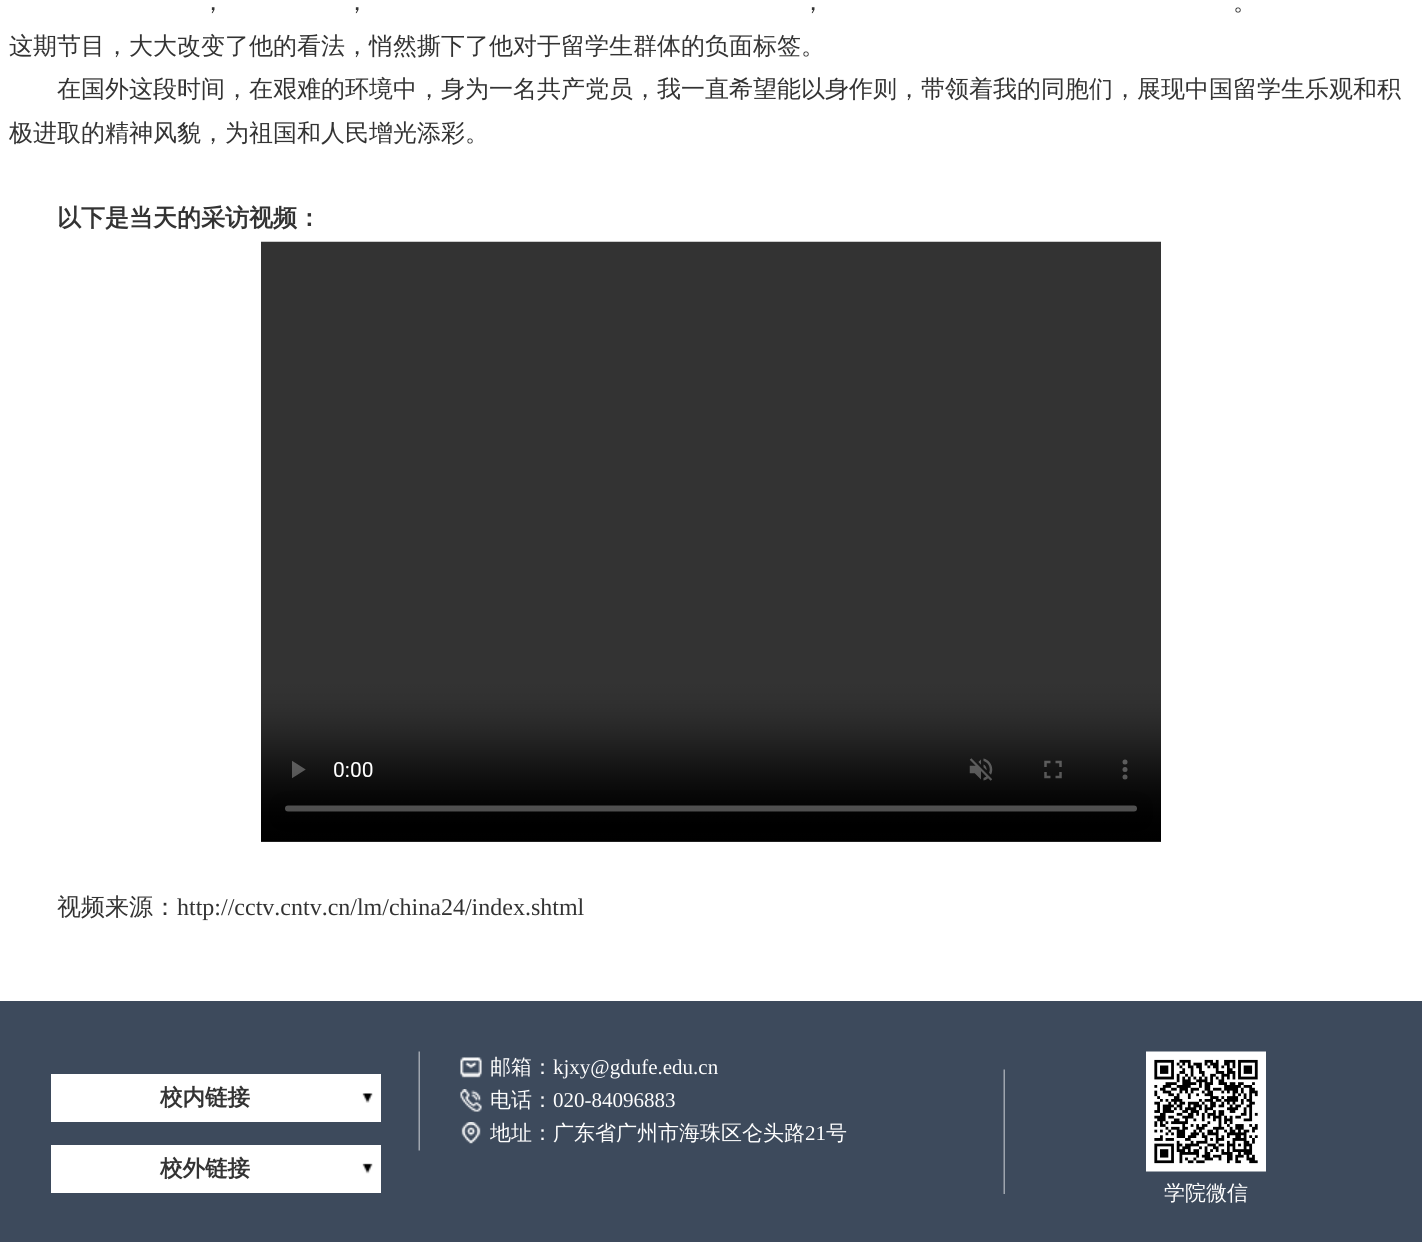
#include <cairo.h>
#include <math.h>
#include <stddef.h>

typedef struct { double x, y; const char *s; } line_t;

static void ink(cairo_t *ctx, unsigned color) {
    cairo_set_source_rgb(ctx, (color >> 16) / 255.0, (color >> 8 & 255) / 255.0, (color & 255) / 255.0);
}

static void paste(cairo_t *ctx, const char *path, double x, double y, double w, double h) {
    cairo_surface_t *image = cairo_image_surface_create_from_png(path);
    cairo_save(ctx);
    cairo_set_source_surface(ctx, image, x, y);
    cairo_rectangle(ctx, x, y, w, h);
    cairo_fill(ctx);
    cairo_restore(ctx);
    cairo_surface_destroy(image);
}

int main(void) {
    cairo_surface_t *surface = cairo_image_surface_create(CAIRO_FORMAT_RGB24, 1422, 1242);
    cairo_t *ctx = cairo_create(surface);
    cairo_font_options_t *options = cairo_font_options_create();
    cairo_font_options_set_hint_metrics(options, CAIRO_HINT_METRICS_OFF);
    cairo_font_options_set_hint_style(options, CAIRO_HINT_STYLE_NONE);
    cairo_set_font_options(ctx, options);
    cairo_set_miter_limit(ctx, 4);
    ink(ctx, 0xFFFFFF);
    cairo_paint(ctx);
    cairo_select_font_face(ctx, "WenQuanYi Zen Hei Medium", CAIRO_FONT_SLANT_NORMAL, CAIRO_FONT_WEIGHT_NORMAL);
    cairo_set_font_size(ctx, 24);
    ink(ctx, 0x333333);
    {
        static const line_t items[] = {
            {201, 10, "，"},
            {345, 10, "，"},
            {801, 10, "，"},
            {1233, 10, "。"},
            {9, 54, "这期节目，大大改变了他的看法，悄然撕下了他对于留学生群体的负面标签。"},
            {57, 97, "在国外这段时间，在艰难的环境中，身为一名共产党员，我一直希望能以身作则，带领着我的同胞们，展现中国留学生乐观和积"},
            {9, 141, "极进取的精神风貌，为祖国和人民增光添彩。"},
        };
        for (size_t i = 0; i < sizeof items / sizeof *items; i++) {
            cairo_move_to(ctx, items[i].x, items[i].y);
            cairo_show_text(ctx, items[i].s);
        }
    }
    cairo_select_font_face(ctx, "WenQuanYi Zen Hei", CAIRO_FONT_SLANT_NORMAL, CAIRO_FONT_WEIGHT_BOLD);
    cairo_move_to(ctx, 57, 226);
    cairo_show_text(ctx, "以下是当天的采访视频：");
    paste(ctx, "media/1.png", 261, 241, 900, 600);
    ink(ctx, 0x1F1F1F);
    cairo_rectangle(ctx, 261, 841, 900, 1);
    cairo_fill(ctx);
    cairo_select_font_face(ctx, "WenQuanYi Zen Hei Medium", CAIRO_FONT_SLANT_NORMAL, CAIRO_FONT_WEIGHT_NORMAL);
    ink(ctx, 0x333333);
    cairo_move_to(ctx, 57, 915);
    cairo_show_text(ctx, "视频来源：");
    cairo_select_font_face(ctx, "Liberation Serif", CAIRO_FONT_SLANT_NORMAL, CAIRO_FONT_WEIGHT_NORMAL);
    cairo_move_to(ctx, 177, 915);
    cairo_show_text(ctx, "http://cctv.cntv.cn/lm/china24/index.shtml");
    ink(ctx, 0x3D4A5C);
    cairo_rectangle(ctx, 0, 1001, 1422, 241);
    cairo_fill(ctx);
    ink(ctx, 0xFFFFFF);
    cairo_rectangle(ctx, 51, 1074, 330, 48);
    cairo_fill(ctx);
    paste(ctx, "media/2.png", 362, 1093, 11, 10);
    cairo_select_font_face(ctx, "WenQuanYi Zen Hei", CAIRO_FONT_SLANT_NORMAL, CAIRO_FONT_WEIGHT_BOLD);
    cairo_set_font_size(ctx, 22.5);
    ink(ctx, 0x333333);
    cairo_move_to(ctx, 160, 1105);
    cairo_show_text(ctx, "校内链接");
    ink(ctx, 0xFFFFFF);
    cairo_rectangle(ctx, 51, 1145, 330, 48);
    cairo_fill(ctx);
    paste(ctx, "media/3.png", 362, 1163, 11, 11);
    ink(ctx, 0x333333);
    cairo_move_to(ctx, 160, 1176);
    cairo_show_text(ctx, "校外链接");
    paste(ctx, "media/4.png", 418, 1051, 2, 100);
    paste(ctx, "media/5.png", 460, 1057, 22, 21);
    cairo_select_font_face(ctx, "WenQuanYi Zen Hei Medium", CAIRO_FONT_SLANT_NORMAL, CAIRO_FONT_WEIGHT_NORMAL);
    cairo_set_font_size(ctx, 21);
    ink(ctx, 0xFEFEFE);
    cairo_move_to(ctx, 490, 1074);
    cairo_show_text(ctx, "邮箱：");
    cairo_select_font_face(ctx, "Liberation Serif", CAIRO_FONT_SLANT_NORMAL, CAIRO_FONT_WEIGHT_NORMAL);
    cairo_move_to(ctx, 553, 1074);
    cairo_show_text(ctx, "kjxy@gdufe.edu.cn");
    paste(ctx, "media/6.png", 460, 1089, 22, 23);
    cairo_select_font_face(ctx, "WenQuanYi Zen Hei Medium", CAIRO_FONT_SLANT_NORMAL, CAIRO_FONT_WEIGHT_NORMAL);
    cairo_move_to(ctx, 490, 1107);
    cairo_show_text(ctx, "电话：");
    cairo_select_font_face(ctx, "Liberation Serif", CAIRO_FONT_SLANT_NORMAL, CAIRO_FONT_WEIGHT_NORMAL);
    cairo_move_to(ctx, 553, 1107);
    cairo_show_text(ctx, "020-84096883");
    paste(ctx, "media/7.png", 461, 1122, 20, 22);
    cairo_select_font_face(ctx, "WenQuanYi Zen Hei Medium", CAIRO_FONT_SLANT_NORMAL, CAIRO_FONT_WEIGHT_NORMAL);
    cairo_move_to(ctx, 490, 1140);
    cairo_show_text(ctx, "地址：广东省广州市海珠区仑头路");
    cairo_select_font_face(ctx, "Liberation Serif", CAIRO_FONT_SLANT_NORMAL, CAIRO_FONT_WEIGHT_NORMAL);
    cairo_move_to(ctx, 805, 1140);
    cairo_show_text(ctx, "21");
    cairo_select_font_face(ctx, "WenQuanYi Zen Hei Medium", CAIRO_FONT_SLANT_NORMAL, CAIRO_FONT_WEIGHT_NORMAL);
    cairo_move_to(ctx, 826, 1140);
    cairo_show_text(ctx, "号");
    paste(ctx, "media/8.png", 1003, 1069, 2, 125);
    paste(ctx, "media/9.png", 1146, 1051, 120, 121);
    cairo_move_to(ctx, 1164, 1200);
    cairo_show_text(ctx, "学院微信");
    cairo_surface_write_to_png(surface, "image.png");
    cairo_font_options_destroy(options);
    cairo_destroy(ctx);
    cairo_surface_destroy(surface);
    return 0;
}
